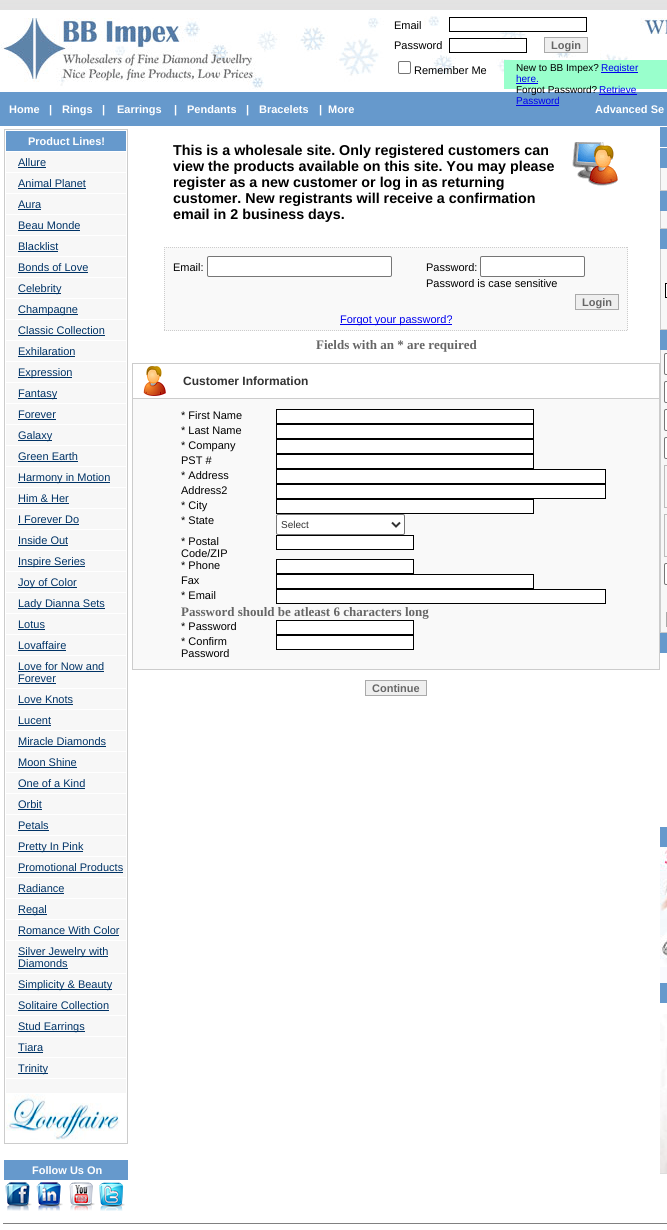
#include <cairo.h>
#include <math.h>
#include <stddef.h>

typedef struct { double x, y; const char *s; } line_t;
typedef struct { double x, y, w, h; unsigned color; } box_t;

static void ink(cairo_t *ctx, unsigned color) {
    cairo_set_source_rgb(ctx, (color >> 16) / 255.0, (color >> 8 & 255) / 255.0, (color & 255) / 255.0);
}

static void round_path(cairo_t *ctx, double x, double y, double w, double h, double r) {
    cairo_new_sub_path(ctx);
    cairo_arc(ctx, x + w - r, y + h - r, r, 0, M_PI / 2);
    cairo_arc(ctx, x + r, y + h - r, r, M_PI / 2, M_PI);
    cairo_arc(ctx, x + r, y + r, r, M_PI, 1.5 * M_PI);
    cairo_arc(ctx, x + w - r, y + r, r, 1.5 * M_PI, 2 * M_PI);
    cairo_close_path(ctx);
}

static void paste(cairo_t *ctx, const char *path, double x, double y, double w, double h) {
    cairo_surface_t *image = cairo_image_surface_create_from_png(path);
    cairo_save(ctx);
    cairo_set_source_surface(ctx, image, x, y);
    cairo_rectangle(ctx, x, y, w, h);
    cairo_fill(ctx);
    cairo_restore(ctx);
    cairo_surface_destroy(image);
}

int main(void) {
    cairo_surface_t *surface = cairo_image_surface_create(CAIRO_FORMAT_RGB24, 667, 1230);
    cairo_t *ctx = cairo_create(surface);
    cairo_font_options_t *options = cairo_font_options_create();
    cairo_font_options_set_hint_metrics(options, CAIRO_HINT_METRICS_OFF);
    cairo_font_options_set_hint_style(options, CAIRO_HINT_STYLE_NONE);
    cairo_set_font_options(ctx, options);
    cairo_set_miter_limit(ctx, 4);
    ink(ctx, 0xFFFFFF);
    cairo_paint(ctx);
    paste(ctx, "media/1.png", 0, 0, 667, 10);
    paste(ctx, "media/2.png", 0, 16, 667, 76);
    cairo_select_font_face(ctx, "Liberation Sans", CAIRO_FONT_SLANT_NORMAL, CAIRO_FONT_WEIGHT_NORMAL);
    cairo_set_font_size(ctx, 11);
    ink(ctx, 0x000000);
    cairo_move_to(ctx, 394, 29);
    cairo_show_text(ctx, "Email");
    ink(ctx, 0xFFFFFF);
    cairo_rectangle(ctx, 496, 18, 31, 13);
    cairo_fill(ctx);
    cairo_rectangle(ctx, 449.5, 17.5, 137, 14);
    ink(ctx, 0x000000);
    cairo_set_line_width(ctx, 1);
    cairo_stroke(ctx);
    cairo_move_to(ctx, 394, 49);
    cairo_show_text(ctx, "Password");
    ink(ctx, 0xFFFFFF);
    cairo_rectangle(ctx, 504, 39, 22, 11);
    cairo_fill(ctx);
    cairo_rectangle(ctx, 449.5, 38.5, 77, 14);
    ink(ctx, 0x000000);
    cairo_stroke(ctx);
    ink(ctx, 0xEFEFEF);
    cairo_rectangle(ctx, 544.5, 37.5, 43, 15);
    cairo_fill_preserve(ctx);
    ink(ctx, 0xAAAAAA);
    cairo_stroke(ctx);
    cairo_select_font_face(ctx, "Liberation Sans", CAIRO_FONT_SLANT_NORMAL, CAIRO_FONT_WEIGHT_BOLD);
    ink(ctx, 0x666666);
    cairo_move_to(ctx, 551, 49);
    cairo_show_text(ctx, "Login");
    round_path(ctx, 398.5, 61.5, 12, 12, 1.5);
    ink(ctx, 0x767676);
    cairo_stroke(ctx);
    cairo_select_font_face(ctx, "Liberation Sans", CAIRO_FONT_SLANT_NORMAL, CAIRO_FONT_WEIGHT_NORMAL);
    ink(ctx, 0x000000);
    cairo_move_to(ctx, 414, 74);
    cairo_show_text(ctx, "Remember Me");
    ink(ctx, 0x99FFCC);
    cairo_rectangle(ctx, 504, 60, 163, 29);
    cairo_fill(ctx);
    cairo_set_font_size(ctx, 10);
    ink(ctx, 0x000000);
    cairo_move_to(ctx, 516, 71);
    cairo_show_text(ctx, "New to BB Impex?");
    ink(ctx, 0x0000EE);
    cairo_rectangle(ctx, 601, 72, 37, 1);
    cairo_fill(ctx);
    cairo_move_to(ctx, 601, 71);
    cairo_show_text(ctx, "Register");
    cairo_move_to(ctx, 516, 82);
    cairo_show_text(ctx, "here.");
    cairo_rectangle(ctx, 516, 83, 22, 1);
    cairo_fill(ctx);
    ink(ctx, 0x6699CC);
    cairo_rectangle(ctx, 0, 92, 667, 34);
    cairo_fill(ctx);
    ink(ctx, 0x000000);
    cairo_move_to(ctx, 516, 93);
    cairo_show_text(ctx, "Forgot Password?");
    ink(ctx, 0x0000EE);
    cairo_move_to(ctx, 599, 93);
    cairo_show_text(ctx, "Retrieve");
    cairo_rectangle(ctx, 599, 94, 38, 1);
    cairo_fill(ctx);
    cairo_move_to(ctx, 516, 104);
    cairo_show_text(ctx, "Password");
    cairo_rectangle(ctx, 516, 105, 43, 1);
    cairo_fill(ctx);
    cairo_select_font_face(ctx, "Liberation Sans", CAIRO_FONT_SLANT_NORMAL, CAIRO_FONT_WEIGHT_BOLD);
    cairo_set_font_size(ctx, 11);
    ink(ctx, 0xFFFFFF);
    {
        static const line_t items[] = {
            {9, 113, "Home"},
            {49, 113, "|"},
            {62, 113, "Rings"},
            {102, 113, "|"},
            {117, 113, "Earrings"},
            {174, 113, "|"},
            {187, 113, "Pendants"},
            {246, 113, "|"},
            {259, 113, "Bracelets"},
            {319, 113, "|"},
            {328, 113, "More"},
            {595, 113, "Advanced Se"},
        };
        for (size_t i = 0; i < sizeof items / sizeof *items; i++) {
            cairo_move_to(ctx, items[i].x, items[i].y);
            cairo_show_text(ctx, items[i].s);
        }
    }
    cairo_rectangle(ctx, 4.5, 129.5, 123, 1014);
    ink(ctx, 0xCCCCCC);
    cairo_stroke(ctx);
    ink(ctx, 0x6699CC);
    cairo_rectangle(ctx, 6, 131, 120, 20);
    cairo_fill(ctx);
    ink(ctx, 0xFFFFFF);
    cairo_move_to(ctx, 28, 145);
    cairo_show_text(ctx, "Product Lines!");
    ink(ctx, 0xF7F7F7);
    cairo_rectangle(ctx, 6, 152, 120, 20);
    cairo_fill(ctx);
    cairo_select_font_face(ctx, "Liberation Sans", CAIRO_FONT_SLANT_NORMAL, CAIRO_FONT_WEIGHT_NORMAL);
    ink(ctx, 0x003366);
    cairo_move_to(ctx, 18, 166);
    cairo_show_text(ctx, "Allure");
    cairo_rectangle(ctx, 18, 167, 28, 1);
    cairo_fill(ctx);
    ink(ctx, 0xF7F7F7);
    cairo_rectangle(ctx, 6, 173, 120, 20);
    cairo_fill(ctx);
    ink(ctx, 0x003366);
    cairo_move_to(ctx, 18, 187);
    cairo_show_text(ctx, "Animal Planet");
    cairo_rectangle(ctx, 18, 188, 68, 1);
    cairo_fill(ctx);
    ink(ctx, 0xF7F7F7);
    cairo_rectangle(ctx, 6, 194, 120, 20);
    cairo_fill(ctx);
    ink(ctx, 0x003366);
    cairo_move_to(ctx, 18, 208);
    cairo_show_text(ctx, "Aura");
    cairo_rectangle(ctx, 18, 209, 23, 1);
    cairo_fill(ctx);
    ink(ctx, 0xF7F7F7);
    cairo_rectangle(ctx, 6, 215, 120, 20);
    cairo_fill(ctx);
    ink(ctx, 0x003366);
    cairo_move_to(ctx, 18, 229);
    cairo_show_text(ctx, "Beau Monde");
    cairo_rectangle(ctx, 18, 230, 62, 1);
    cairo_fill(ctx);
    ink(ctx, 0xF7F7F7);
    cairo_rectangle(ctx, 6, 236, 120, 20);
    cairo_fill(ctx);
    ink(ctx, 0x003366);
    cairo_move_to(ctx, 18, 250);
    cairo_show_text(ctx, "Blacklist");
    cairo_rectangle(ctx, 18, 251, 40, 1);
    cairo_fill(ctx);
    ink(ctx, 0xF7F7F7);
    cairo_rectangle(ctx, 6, 257, 120, 20);
    cairo_fill(ctx);
    ink(ctx, 0x003366);
    cairo_move_to(ctx, 18, 271);
    cairo_show_text(ctx, "Bonds of Love");
    {
        static const box_t items[] = {
            {18, 272, 70, 1, 0x003366},
            {6, 278, 120, 20, 0xF7F7F7},
            {18, 293, 43, 1, 0x003366},
        };
        for (size_t i = 0; i < sizeof items / sizeof *items; i++) {
            ink(ctx, items[i].color);
            cairo_rectangle(ctx, items[i].x, items[i].y, items[i].w, items[i].h);
            cairo_fill(ctx);
        }
    }
    cairo_move_to(ctx, 18, 292);
    cairo_show_text(ctx, "Celebrity");
    ink(ctx, 0xF7F7F7);
    cairo_rectangle(ctx, 6, 299, 120, 20);
    cairo_fill(ctx);
    ink(ctx, 0x003366);
    cairo_rectangle(ctx, 18, 314, 60, 1);
    cairo_fill(ctx);
    cairo_move_to(ctx, 18, 313);
    cairo_show_text(ctx, "Champagne");
    ink(ctx, 0xF7F7F7);
    cairo_rectangle(ctx, 6, 320, 120, 20);
    cairo_fill(ctx);
    ink(ctx, 0x003366);
    cairo_move_to(ctx, 18, 334);
    cairo_show_text(ctx, "Classic Collection");
    cairo_rectangle(ctx, 18, 335, 87, 1);
    cairo_fill(ctx);
    ink(ctx, 0xF7F7F7);
    cairo_rectangle(ctx, 6, 341, 120, 20);
    cairo_fill(ctx);
    ink(ctx, 0x003366);
    cairo_move_to(ctx, 18, 355);
    cairo_show_text(ctx, "Exhilaration");
    {
        static const box_t items[] = {
            {18, 356, 57, 1, 0x003366},
            {6, 362, 120, 20, 0xF7F7F7},
            {18, 377, 54, 1, 0x003366},
        };
        for (size_t i = 0; i < sizeof items / sizeof *items; i++) {
            ink(ctx, items[i].color);
            cairo_rectangle(ctx, items[i].x, items[i].y, items[i].w, items[i].h);
            cairo_fill(ctx);
        }
    }
    cairo_move_to(ctx, 18, 376);
    cairo_show_text(ctx, "Expression");
    ink(ctx, 0xF7F7F7);
    cairo_rectangle(ctx, 6, 383, 120, 20);
    cairo_fill(ctx);
    ink(ctx, 0x003366);
    cairo_rectangle(ctx, 18, 398, 39, 1);
    cairo_fill(ctx);
    cairo_move_to(ctx, 18, 397);
    cairo_show_text(ctx, "Fantasy");
    ink(ctx, 0xF7F7F7);
    cairo_rectangle(ctx, 6, 404, 120, 20);
    cairo_fill(ctx);
    ink(ctx, 0x003366);
    cairo_move_to(ctx, 18, 418);
    cairo_show_text(ctx, "Forever");
    {
        static const box_t items[] = {
            {18, 419, 38, 1, 0x003366},
            {6, 425, 120, 20, 0xF7F7F7},
            {18, 440, 34, 1, 0x003366},
        };
        for (size_t i = 0; i < sizeof items / sizeof *items; i++) {
            ink(ctx, items[i].color);
            cairo_rectangle(ctx, items[i].x, items[i].y, items[i].w, items[i].h);
            cairo_fill(ctx);
        }
    }
    cairo_move_to(ctx, 18, 439);
    cairo_show_text(ctx, "Galaxy");
    ink(ctx, 0xF7F7F7);
    cairo_rectangle(ctx, 6, 446, 120, 20);
    cairo_fill(ctx);
    ink(ctx, 0x003366);
    cairo_move_to(ctx, 18, 460);
    cairo_show_text(ctx, "Green Earth");
    {
        static const box_t items[] = {
            {18, 461, 60, 1, 0x003366},
            {6, 467, 120, 20, 0xF7F7F7},
            {18, 482, 92, 1, 0x003366},
        };
        for (size_t i = 0; i < sizeof items / sizeof *items; i++) {
            ink(ctx, items[i].color);
            cairo_rectangle(ctx, items[i].x, items[i].y, items[i].w, items[i].h);
            cairo_fill(ctx);
        }
    }
    cairo_move_to(ctx, 18, 481);
    cairo_show_text(ctx, "Harmony in Motion");
    ink(ctx, 0xF7F7F7);
    cairo_rectangle(ctx, 6, 488, 120, 20);
    cairo_fill(ctx);
    ink(ctx, 0x003366);
    cairo_move_to(ctx, 18, 502);
    cairo_show_text(ctx, "Him & Her");
    cairo_rectangle(ctx, 18, 503, 51, 1);
    cairo_fill(ctx);
    ink(ctx, 0xF7F7F7);
    cairo_rectangle(ctx, 6, 509, 120, 20);
    cairo_fill(ctx);
    ink(ctx, 0x003366);
    cairo_move_to(ctx, 18, 523);
    cairo_show_text(ctx, "I Forever Do");
    cairo_rectangle(ctx, 18, 524, 61, 1);
    cairo_fill(ctx);
    ink(ctx, 0xF7F7F7);
    cairo_rectangle(ctx, 6, 530, 120, 20);
    cairo_fill(ctx);
    ink(ctx, 0x003366);
    cairo_move_to(ctx, 18, 544);
    cairo_show_text(ctx, "Inside Out");
    {
        static const box_t items[] = {
            {18, 545, 50, 1, 0x003366},
            {6, 551, 120, 20, 0xF7F7F7},
            {18, 566, 67, 1, 0x003366},
        };
        for (size_t i = 0; i < sizeof items / sizeof *items; i++) {
            ink(ctx, items[i].color);
            cairo_rectangle(ctx, items[i].x, items[i].y, items[i].w, items[i].h);
            cairo_fill(ctx);
        }
    }
    cairo_move_to(ctx, 18, 565);
    cairo_show_text(ctx, "Inspire Series");
    ink(ctx, 0xF7F7F7);
    cairo_rectangle(ctx, 6, 572, 120, 20);
    cairo_fill(ctx);
    ink(ctx, 0x003366);
    cairo_rectangle(ctx, 18, 587, 59, 1);
    cairo_fill(ctx);
    cairo_move_to(ctx, 18, 586);
    cairo_show_text(ctx, "Joy of Color");
    ink(ctx, 0xF7F7F7);
    cairo_rectangle(ctx, 6, 593, 120, 20);
    cairo_fill(ctx);
    ink(ctx, 0x003366);
    cairo_rectangle(ctx, 18, 608, 87, 1);
    cairo_fill(ctx);
    cairo_move_to(ctx, 18, 607);
    cairo_show_text(ctx, "Lady Dianna Sets");
    ink(ctx, 0xF7F7F7);
    cairo_rectangle(ctx, 6, 614, 120, 20);
    cairo_fill(ctx);
    ink(ctx, 0x003366);
    cairo_move_to(ctx, 18, 628);
    cairo_show_text(ctx, "Lotus");
    cairo_rectangle(ctx, 18, 629, 27, 1);
    cairo_fill(ctx);
    ink(ctx, 0xF7F7F7);
    cairo_rectangle(ctx, 6, 635, 120, 20);
    cairo_fill(ctx);
    ink(ctx, 0x003366);
    cairo_move_to(ctx, 18, 649);
    cairo_show_text(ctx, "Lovaffaire");
    cairo_rectangle(ctx, 18, 650, 48, 1);
    cairo_fill(ctx);
    ink(ctx, 0xF7F7F7);
    cairo_rectangle(ctx, 6, 656, 120, 32);
    cairo_fill(ctx);
    ink(ctx, 0x003366);
    cairo_move_to(ctx, 18, 670);
    cairo_show_text(ctx, "Love for Now and");
    cairo_rectangle(ctx, 18, 671, 86, 1);
    cairo_fill(ctx);
    cairo_move_to(ctx, 18, 682);
    cairo_show_text(ctx, "Forever");
    cairo_rectangle(ctx, 18, 683, 38, 1);
    cairo_fill(ctx);
    ink(ctx, 0xF7F7F7);
    cairo_rectangle(ctx, 6, 689, 120, 20);
    cairo_fill(ctx);
    ink(ctx, 0x003366);
    cairo_move_to(ctx, 18, 703);
    cairo_show_text(ctx, "Love Knots");
    cairo_rectangle(ctx, 18, 704, 55, 1);
    cairo_fill(ctx);
    ink(ctx, 0xF7F7F7);
    cairo_rectangle(ctx, 6, 710, 120, 20);
    cairo_fill(ctx);
    ink(ctx, 0x003366);
    cairo_move_to(ctx, 18, 724);
    cairo_show_text(ctx, "Lucent");
    cairo_rectangle(ctx, 18, 725, 33, 1);
    cairo_fill(ctx);
    ink(ctx, 0xF7F7F7);
    cairo_rectangle(ctx, 6, 731, 120, 20);
    cairo_fill(ctx);
    ink(ctx, 0x003366);
    cairo_move_to(ctx, 18, 745);
    cairo_show_text(ctx, "Miracle Diamonds");
    cairo_rectangle(ctx, 18, 746, 88, 1);
    cairo_fill(ctx);
    ink(ctx, 0xF7F7F7);
    cairo_rectangle(ctx, 6, 752, 120, 20);
    cairo_fill(ctx);
    ink(ctx, 0x003366);
    cairo_move_to(ctx, 18, 766);
    cairo_show_text(ctx, "Moon Shine");
    cairo_rectangle(ctx, 18, 767, 59, 1);
    cairo_fill(ctx);
    ink(ctx, 0xF7F7F7);
    cairo_rectangle(ctx, 6, 773, 120, 20);
    cairo_fill(ctx);
    ink(ctx, 0x003366);
    cairo_move_to(ctx, 18, 787);
    cairo_show_text(ctx, "One of a Kind");
    cairo_rectangle(ctx, 18, 788, 67, 1);
    cairo_fill(ctx);
    ink(ctx, 0xF7F7F7);
    cairo_rectangle(ctx, 6, 794, 120, 20);
    cairo_fill(ctx);
    ink(ctx, 0x003366);
    cairo_move_to(ctx, 18, 808);
    cairo_show_text(ctx, "Orbit");
    cairo_rectangle(ctx, 18, 809, 24, 1);
    cairo_fill(ctx);
    ink(ctx, 0xF7F7F7);
    cairo_rectangle(ctx, 6, 815, 120, 20);
    cairo_fill(ctx);
    ink(ctx, 0x003366);
    cairo_move_to(ctx, 18, 829);
    cairo_show_text(ctx, "Petals");
    {
        static const box_t items[] = {
            {18, 830, 31, 1, 0x003366},
            {6, 836, 120, 20, 0xF7F7F7},
            {18, 851, 65, 1, 0x003366},
        };
        for (size_t i = 0; i < sizeof items / sizeof *items; i++) {
            ink(ctx, items[i].color);
            cairo_rectangle(ctx, items[i].x, items[i].y, items[i].w, items[i].h);
            cairo_fill(ctx);
        }
    }
    cairo_move_to(ctx, 18, 850);
    cairo_show_text(ctx, "Pretty In Pink");
    ink(ctx, 0xF7F7F7);
    cairo_rectangle(ctx, 6, 857, 120, 20);
    cairo_fill(ctx);
    ink(ctx, 0x003366);
    cairo_move_to(ctx, 18, 871);
    cairo_show_text(ctx, "Promotional Products");
    cairo_rectangle(ctx, 18, 872, 105, 1);
    cairo_fill(ctx);
    ink(ctx, 0xF7F7F7);
    cairo_rectangle(ctx, 6, 878, 120, 20);
    cairo_fill(ctx);
    ink(ctx, 0x003366);
    cairo_move_to(ctx, 18, 892);
    cairo_show_text(ctx, "Radiance");
    {
        static const box_t items[] = {
            {18, 893, 46, 1, 0x003366},
            {6, 899, 120, 20, 0xF7F7F7},
            {18, 914, 29, 1, 0x003366},
        };
        for (size_t i = 0; i < sizeof items / sizeof *items; i++) {
            ink(ctx, items[i].color);
            cairo_rectangle(ctx, items[i].x, items[i].y, items[i].w, items[i].h);
            cairo_fill(ctx);
        }
    }
    cairo_move_to(ctx, 18, 913);
    cairo_show_text(ctx, "Regal");
    ink(ctx, 0xF7F7F7);
    cairo_rectangle(ctx, 6, 920, 120, 20);
    cairo_fill(ctx);
    ink(ctx, 0x003366);
    cairo_move_to(ctx, 18, 934);
    cairo_show_text(ctx, "Romance With Color");
    {
        static const box_t items[] = {
            {18, 935, 101, 1, 0x003366},
            {6, 941, 120, 32, 0xF7F7F7},
            {18, 956, 90, 1, 0x003366},
        };
        for (size_t i = 0; i < sizeof items / sizeof *items; i++) {
            ink(ctx, items[i].color);
            cairo_rectangle(ctx, items[i].x, items[i].y, items[i].w, items[i].h);
            cairo_fill(ctx);
        }
    }
    cairo_move_to(ctx, 18, 955);
    cairo_show_text(ctx, "Silver Jewelry with");
    cairo_move_to(ctx, 18, 967);
    cairo_show_text(ctx, "Diamonds");
    {
        static const box_t items[] = {
            {18, 968, 50, 1, 0x003366},
            {6, 974, 120, 20, 0xF7F7F7},
            {18, 989, 94, 1, 0x003366},
        };
        for (size_t i = 0; i < sizeof items / sizeof *items; i++) {
            ink(ctx, items[i].color);
            cairo_rectangle(ctx, items[i].x, items[i].y, items[i].w, items[i].h);
            cairo_fill(ctx);
        }
    }
    cairo_move_to(ctx, 18, 988);
    cairo_show_text(ctx, "Simplicity & Beauty");
    ink(ctx, 0xF7F7F7);
    cairo_rectangle(ctx, 6, 995, 120, 20);
    cairo_fill(ctx);
    ink(ctx, 0x003366);
    cairo_move_to(ctx, 18, 1009);
    cairo_show_text(ctx, "Solitaire Collection");
    {
        static const box_t items[] = {
            {18, 1010, 91, 1, 0x003366},
            {6, 1016, 120, 20, 0xF7F7F7},
            {18, 1031, 67, 1, 0x003366},
        };
        for (size_t i = 0; i < sizeof items / sizeof *items; i++) {
            ink(ctx, items[i].color);
            cairo_rectangle(ctx, items[i].x, items[i].y, items[i].w, items[i].h);
            cairo_fill(ctx);
        }
    }
    cairo_move_to(ctx, 18, 1030);
    cairo_show_text(ctx, "Stud Earrings");
    ink(ctx, 0xF7F7F7);
    cairo_rectangle(ctx, 6, 1037, 120, 20);
    cairo_fill(ctx);
    ink(ctx, 0x003366);
    cairo_move_to(ctx, 18, 1051);
    cairo_show_text(ctx, "Tiara");
    {
        static const box_t items[] = {
            {18, 1052, 25, 1, 0x003366},
            {6, 1058, 120, 20, 0xF7F7F7},
            {18, 1073, 30, 1, 0x003366},
        };
        for (size_t i = 0; i < sizeof items / sizeof *items; i++) {
            ink(ctx, items[i].color);
            cairo_rectangle(ctx, items[i].x, items[i].y, items[i].w, items[i].h);
            cairo_fill(ctx);
        }
    }
    cairo_move_to(ctx, 18, 1072);
    cairo_show_text(ctx, "Trinity");
    ink(ctx, 0xF7F7F7);
    cairo_rectangle(ctx, 6, 1079, 120, 14);
    cairo_fill(ctx);
    paste(ctx, "media/3.png", 6, 1094, 114, 46);
    ink(ctx, 0x6699CC);
    cairo_rectangle(ctx, 4, 1160, 124, 20);
    cairo_fill(ctx);
    cairo_select_font_face(ctx, "Liberation Sans", CAIRO_FONT_SLANT_NORMAL, CAIRO_FONT_WEIGHT_BOLD);
    ink(ctx, 0xFFFFFF);
    cairo_move_to(ctx, 32, 1174);
    cairo_show_text(ctx, "Follow Us On");
    paste(ctx, "media/4.png", 5, 1182, 27, 29);
    paste(ctx, "media/5.png", 36, 1182, 27, 29);
    paste(ctx, "media/6.png", 69, 1182, 26, 29);
    paste(ctx, "media/7.png", 99, 1182, 26, 29);
    cairo_set_font_size(ctx, 14.3);
    ink(ctx, 0x000000);
    {
        static const line_t items[] = {
            {173, 155, "This is a wholesale site. Only registered customers can"},
            {173, 171, "view the products available on this site. You may please"},
            {173, 187, "register as a new customer or log in as returning"},
            {173, 203, "customer. New registrants will receive a confirmation"},
            {173, 219, "email in 2 business days."},
        };
        for (size_t i = 0; i < sizeof items / sizeof *items; i++) {
            cairo_move_to(ctx, items[i].x, items[i].y);
            cairo_show_text(ctx, items[i].s);
        }
    }
    paste(ctx, "media/8.png", 572, 142, 46, 44);
    ink(ctx, 0xF9F9F9);
    cairo_rectangle(ctx, 164, 247, 464, 84);
    cairo_fill(ctx);
    cairo_new_path(ctx);
    cairo_move_to(ctx, 164, 247.5);
    cairo_line_to(ctx, 628, 247.5);
    ink(ctx, 0xCCCCCC);
    cairo_set_dash(ctx, (double[]){1, 1}, 2, 0);
    cairo_stroke(ctx);
    cairo_new_path(ctx);
    cairo_move_to(ctx, 627.5, 247);
    cairo_line_to(ctx, 627.5, 331);
    cairo_stroke(ctx);
    cairo_new_path(ctx);
    cairo_move_to(ctx, 164, 330.5);
    cairo_line_to(ctx, 628, 330.5);
    cairo_stroke(ctx);
    cairo_new_path(ctx);
    cairo_move_to(ctx, 164.5, 247);
    cairo_line_to(ctx, 164.5, 331);
    cairo_stroke(ctx);
    cairo_select_font_face(ctx, "Liberation Sans", CAIRO_FONT_SLANT_NORMAL, CAIRO_FONT_WEIGHT_NORMAL);
    cairo_set_font_size(ctx, 11);
    ink(ctx, 0x000000);
    cairo_move_to(ctx, 173, 271);
    cairo_show_text(ctx, "Email:");
    ink(ctx, 0xFFFFFF);
    round_path(ctx, 207.5, 256.5, 184, 20, 1.5);
    cairo_fill_preserve(ctx);
    ink(ctx, 0x767676);
    cairo_set_dash(ctx, NULL, 0, 0);
    cairo_stroke(ctx);
    ink(ctx, 0x000000);
    cairo_move_to(ctx, 426, 271);
    cairo_show_text(ctx, "Password:");
    ink(ctx, 0xFFFFFF);
    round_path(ctx, 480.5, 256.5, 104, 20, 1.5);
    cairo_fill_preserve(ctx);
    ink(ctx, 0x767676);
    cairo_stroke(ctx);
    ink(ctx, 0x000000);
    cairo_move_to(ctx, 426, 287);
    cairo_show_text(ctx, "Password is case sensitive");
    ink(ctx, 0xEFEFEF);
    cairo_rectangle(ctx, 575.5, 294.5, 43, 15);
    cairo_fill_preserve(ctx);
    ink(ctx, 0xAAAAAA);
    cairo_stroke(ctx);
    cairo_select_font_face(ctx, "Liberation Sans", CAIRO_FONT_SLANT_NORMAL, CAIRO_FONT_WEIGHT_BOLD);
    ink(ctx, 0x666666);
    cairo_move_to(ctx, 582, 306);
    cairo_show_text(ctx, "Login");
    ink(ctx, 0x0000EE);
    cairo_rectangle(ctx, 340, 324, 112, 1);
    cairo_fill(ctx);
    cairo_select_font_face(ctx, "Liberation Sans", CAIRO_FONT_SLANT_NORMAL, CAIRO_FONT_WEIGHT_NORMAL);
    cairo_move_to(ctx, 340, 323);
    cairo_show_text(ctx, "Forgot your password?");
    cairo_select_font_face(ctx, "Liberation Serif", CAIRO_FONT_SLANT_NORMAL, CAIRO_FONT_WEIGHT_BOLD);
    cairo_set_font_size(ctx, 13);
    ink(ctx, 0x666666);
    cairo_move_to(ctx, 316, 349);
    cairo_show_text(ctx, "Fields with an * are required");
    paste(ctx, "media/9.png", 143, 366, 23, 30);
    {
        static const box_t items[] = {
            {132, 363, 528, 1, 0xCCCCCC},
            {659, 363, 1, 35, 0xCCCCCC},
            {132, 363, 1, 35, 0xCCCCCC},
        };
        for (size_t i = 0; i < sizeof items / sizeof *items; i++) {
            ink(ctx, items[i].color);
            cairo_rectangle(ctx, items[i].x, items[i].y, items[i].w, items[i].h);
            cairo_fill(ctx);
        }
    }
    cairo_select_font_face(ctx, "Liberation Sans", CAIRO_FONT_SLANT_NORMAL, CAIRO_FONT_WEIGHT_BOLD);
    cairo_set_font_size(ctx, 12);
    ink(ctx, 0x333333);
    cairo_move_to(ctx, 183, 385);
    cairo_show_text(ctx, "Customer Information");
    ink(ctx, 0xF9F9F9);
    cairo_rectangle(ctx, 132.5, 398.5, 527, 271);
    cairo_fill_preserve(ctx);
    ink(ctx, 0xCCCCCC);
    cairo_stroke(ctx);
    cairo_select_font_face(ctx, "Liberation Sans", CAIRO_FONT_SLANT_NORMAL, CAIRO_FONT_WEIGHT_NORMAL);
    cairo_set_font_size(ctx, 11);
    ink(ctx, 0x000000);
    cairo_move_to(ctx, 181, 419);
    cairo_show_text(ctx, "* First Name");
    ink(ctx, 0xFFFFFF);
    cairo_rectangle(ctx, 276.5, 409.5, 257, 14);
    cairo_fill_preserve(ctx);
    ink(ctx, 0x000000);
    cairo_stroke(ctx);
    cairo_move_to(ctx, 181, 434);
    cairo_show_text(ctx, "* Last Name");
    ink(ctx, 0xFFFFFF);
    cairo_rectangle(ctx, 276.5, 424.5, 257, 14);
    cairo_fill_preserve(ctx);
    ink(ctx, 0x000000);
    cairo_stroke(ctx);
    cairo_move_to(ctx, 181, 449);
    cairo_show_text(ctx, "* Company");
    ink(ctx, 0xFFFFFF);
    cairo_rectangle(ctx, 276.5, 439.5, 257, 14);
    cairo_fill_preserve(ctx);
    ink(ctx, 0x000000);
    cairo_stroke(ctx);
    cairo_move_to(ctx, 181, 464);
    cairo_show_text(ctx, "PST #");
    ink(ctx, 0xFFFFFF);
    cairo_rectangle(ctx, 276.5, 454.5, 257, 14);
    cairo_fill_preserve(ctx);
    ink(ctx, 0x000000);
    cairo_stroke(ctx);
    cairo_move_to(ctx, 181, 479);
    cairo_show_text(ctx, "* Address");
    ink(ctx, 0xFFFFFF);
    cairo_rectangle(ctx, 276.5, 469.5, 329, 14);
    cairo_fill_preserve(ctx);
    ink(ctx, 0x000000);
    cairo_stroke(ctx);
    cairo_move_to(ctx, 181, 494);
    cairo_show_text(ctx, "Address2");
    ink(ctx, 0xFFFFFF);
    cairo_rectangle(ctx, 276.5, 484.5, 329, 14);
    cairo_fill_preserve(ctx);
    ink(ctx, 0x000000);
    cairo_stroke(ctx);
    cairo_move_to(ctx, 181, 509);
    cairo_show_text(ctx, "* City");
    ink(ctx, 0xFFFFFF);
    cairo_rectangle(ctx, 276.5, 499.5, 257, 14);
    cairo_fill_preserve(ctx);
    ink(ctx, 0x000000);
    cairo_stroke(ctx);
    cairo_move_to(ctx, 181, 524);
    cairo_show_text(ctx, "* State");
    ink(ctx, 0xFFFFFF);
    round_path(ctx, 276.5, 514.5, 128, 20, 1.5);
    cairo_fill_preserve(ctx);
    ink(ctx, 0x767676);
    cairo_stroke(ctx);
    cairo_new_path(ctx);
    cairo_move_to(ctx, 392, 522.5);
    cairo_line_to(ctx, 396, 526.5);
    cairo_line_to(ctx, 400, 522.5);
    ink(ctx, 0x333333);
    cairo_set_line_width(ctx, 2);
    cairo_stroke(ctx);
    cairo_set_font_size(ctx, 10);
    cairo_move_to(ctx, 281, 528);
    cairo_show_text(ctx, "Select");
    cairo_set_font_size(ctx, 11);
    ink(ctx, 0x000000);
    cairo_move_to(ctx, 181, 545);
    cairo_show_text(ctx, "* Postal");
    cairo_move_to(ctx, 181, 557);
    cairo_show_text(ctx, "Code/ZIP");
    ink(ctx, 0xFFFFFF);
    cairo_rectangle(ctx, 276.5, 535.5, 137, 14);
    cairo_fill_preserve(ctx);
    ink(ctx, 0x000000);
    cairo_set_line_width(ctx, 1);
    cairo_stroke(ctx);
    cairo_move_to(ctx, 181, 569);
    cairo_show_text(ctx, "* Phone");
    ink(ctx, 0xFFFFFF);
    cairo_rectangle(ctx, 276.5, 559.5, 137, 14);
    cairo_fill_preserve(ctx);
    ink(ctx, 0x000000);
    cairo_stroke(ctx);
    cairo_move_to(ctx, 181, 584);
    cairo_show_text(ctx, "Fax");
    ink(ctx, 0xFFFFFF);
    cairo_rectangle(ctx, 276.5, 574.5, 257, 14);
    cairo_fill_preserve(ctx);
    ink(ctx, 0x000000);
    cairo_stroke(ctx);
    cairo_move_to(ctx, 181, 599);
    cairo_show_text(ctx, "* Email");
    ink(ctx, 0xFFFFFF);
    cairo_rectangle(ctx, 276.5, 589.5, 329, 14);
    cairo_fill_preserve(ctx);
    ink(ctx, 0x000000);
    cairo_stroke(ctx);
    cairo_select_font_face(ctx, "Liberation Serif", CAIRO_FONT_SLANT_NORMAL, CAIRO_FONT_WEIGHT_BOLD);
    cairo_set_font_size(ctx, 13);
    ink(ctx, 0x666666);
    cairo_move_to(ctx, 181, 616);
    cairo_show_text(ctx, "Password should be atleast 6 characters long");
    cairo_select_font_face(ctx, "Liberation Sans", CAIRO_FONT_SLANT_NORMAL, CAIRO_FONT_WEIGHT_NORMAL);
    cairo_set_font_size(ctx, 11);
    ink(ctx, 0x000000);
    cairo_move_to(ctx, 181, 630);
    cairo_show_text(ctx, "* Password");
    ink(ctx, 0xFFFFFF);
    cairo_rectangle(ctx, 276.5, 620.5, 137, 14);
    cairo_fill_preserve(ctx);
    ink(ctx, 0x000000);
    cairo_stroke(ctx);
    cairo_move_to(ctx, 181, 645);
    cairo_show_text(ctx, "* Confirm");
    cairo_move_to(ctx, 181, 657);
    cairo_show_text(ctx, "Password");
    ink(ctx, 0xFFFFFF);
    cairo_rectangle(ctx, 276.5, 635.5, 137, 14);
    cairo_fill_preserve(ctx);
    ink(ctx, 0x000000);
    cairo_stroke(ctx);
    ink(ctx, 0xEFEFEF);
    cairo_rectangle(ctx, 365.5, 680.5, 61, 15);
    cairo_fill_preserve(ctx);
    ink(ctx, 0xAAAAAA);
    cairo_stroke(ctx);
    cairo_select_font_face(ctx, "Liberation Sans", CAIRO_FONT_SLANT_NORMAL, CAIRO_FONT_WEIGHT_BOLD);
    ink(ctx, 0x666666);
    cairo_move_to(ctx, 372, 692);
    cairo_show_text(ctx, "Continue");
    {
        static const box_t items[] = {
            {660, 127, 7, 20, 0x6699CC},
            {660, 148, 7, 20, 0x6699CC},
            {661, 168, 6, 23, 0xF7F7F7},
            {660, 190, 7, 1, 0xCCCCCC},
            {660, 168, 1, 23, 0xCCCCCC},
            {660, 191, 7, 20, 0x6699CC},
            {661, 211, 6, 18, 0xF7F7F7},
            {660, 228, 7, 1, 0xCCCCCC},
            {660, 211, 1, 18, 0xCCCCCC},
            {660, 229, 7, 20, 0x6699CC},
            {661, 249, 6, 81, 0xF7F7F7},
            {660, 329, 7, 1, 0xCCCCCC},
            {660, 249, 1, 81, 0xCCCCCC},
        };
        for (size_t i = 0; i < sizeof items / sizeof *items; i++) {
            ink(ctx, items[i].color);
            cairo_rectangle(ctx, items[i].x, items[i].y, items[i].w, items[i].h);
            cairo_fill(ctx);
        }
    }
    ink(ctx, 0xFFFFFF);
    cairo_rectangle(ctx, 665.5, 283.5, 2, 14);
    cairo_fill_preserve(ctx);
    ink(ctx, 0x000000);
    cairo_stroke(ctx);
    {
        static const box_t items[] = {
            {660, 330, 7, 20, 0x6699CC},
            {661, 350, 6, 283, 0xF7F7F7},
            {660, 632, 7, 1, 0xCCCCCC},
            {660, 350, 1, 283, 0xCCCCCC},
        };
        for (size_t i = 0; i < sizeof items / sizeof *items; i++) {
            ink(ctx, items[i].color);
            cairo_rectangle(ctx, items[i].x, items[i].y, items[i].w, items[i].h);
            cairo_fill(ctx);
        }
    }
    ink(ctx, 0xFFFFFF);
    round_path(ctx, 664.5, 353.5, 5, 21, 1.5);
    cairo_fill_preserve(ctx);
    ink(ctx, 0x767676);
    cairo_stroke(ctx);
    ink(ctx, 0xFFFFFF);
    round_path(ctx, 664.5, 381.5, 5, 21, 1.5);
    cairo_fill_preserve(ctx);
    ink(ctx, 0x767676);
    cairo_stroke(ctx);
    ink(ctx, 0xFFFFFF);
    round_path(ctx, 664.5, 409.5, 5, 21, 1.5);
    cairo_fill_preserve(ctx);
    ink(ctx, 0x767676);
    cairo_stroke(ctx);
    ink(ctx, 0xFFFFFF);
    round_path(ctx, 664.5, 437.5, 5, 21, 1.5);
    cairo_fill_preserve(ctx);
    ink(ctx, 0x767676);
    cairo_stroke(ctx);
    cairo_rectangle(ctx, 664.5, 465.5, 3, 42);
    ink(ctx, 0xBBBBBB);
    cairo_stroke(ctx);
    cairo_rectangle(ctx, 664.5, 514.5, 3, 42);
    cairo_stroke(ctx);
    ink(ctx, 0xFFFFFF);
    round_path(ctx, 664.5, 563.5, 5, 21, 1.5);
    cairo_fill_preserve(ctx);
    ink(ctx, 0x767676);
    cairo_stroke(ctx);
    {
        static const box_t items[] = {
            {666, 612, 1, 15, 0xAAAAAA},
            {660, 633, 7, 20, 0x6699CC},
            {660, 827, 7, 20, 0x6699CC},
        };
        for (size_t i = 0; i < sizeof items / sizeof *items; i++) {
            ink(ctx, items[i].color);
            cairo_rectangle(ctx, items[i].x, items[i].y, items[i].w, items[i].h);
            cairo_fill(ctx);
        }
    }
    paste(ctx, "media/10.png", 660, 847, 7, 136);
    cairo_rectangle(ctx, 660, 983, 7, 20);
    cairo_fill(ctx);
    ink(ctx, 0xDDDDDD);
    cairo_rectangle(ctx, 660, 1173, 7, 1);
    cairo_fill(ctx);
    paste(ctx, "media/11.png", 660, 1014, 7, 159);
    ink(ctx, 0x808080);
    cairo_rectangle(ctx, 3, 1223, 664, 1);
    cairo_fill(ctx);
    cairo_surface_write_to_png(surface, "image.png");
    cairo_font_options_destroy(options);
    cairo_destroy(ctx);
    cairo_surface_destroy(surface);
    return 0;
}
